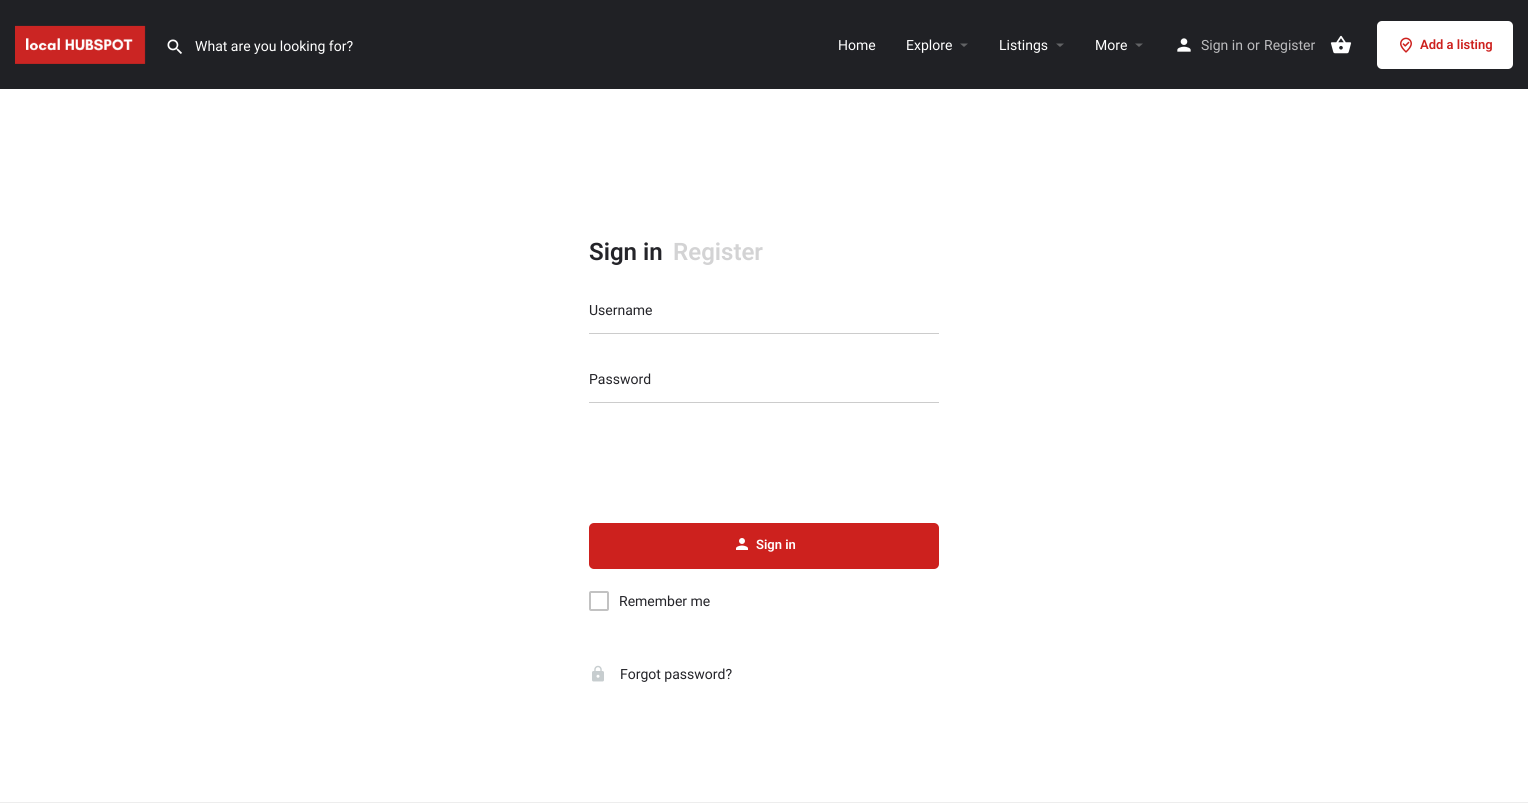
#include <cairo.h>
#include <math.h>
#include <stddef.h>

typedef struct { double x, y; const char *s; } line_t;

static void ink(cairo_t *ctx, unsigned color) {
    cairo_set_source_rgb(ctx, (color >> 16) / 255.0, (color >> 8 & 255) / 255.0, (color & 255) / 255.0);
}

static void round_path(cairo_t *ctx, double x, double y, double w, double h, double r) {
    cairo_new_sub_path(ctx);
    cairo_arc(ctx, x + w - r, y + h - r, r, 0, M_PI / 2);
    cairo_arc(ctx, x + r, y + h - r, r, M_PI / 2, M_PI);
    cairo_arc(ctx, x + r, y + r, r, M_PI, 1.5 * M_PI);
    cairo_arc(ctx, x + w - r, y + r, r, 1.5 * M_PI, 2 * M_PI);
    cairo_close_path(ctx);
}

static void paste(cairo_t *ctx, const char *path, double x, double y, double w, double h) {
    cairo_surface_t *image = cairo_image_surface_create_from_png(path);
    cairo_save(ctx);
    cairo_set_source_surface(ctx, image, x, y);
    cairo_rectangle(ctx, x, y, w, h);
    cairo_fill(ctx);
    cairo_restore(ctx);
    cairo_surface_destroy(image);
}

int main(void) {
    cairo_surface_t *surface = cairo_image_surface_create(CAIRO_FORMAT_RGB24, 1528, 803);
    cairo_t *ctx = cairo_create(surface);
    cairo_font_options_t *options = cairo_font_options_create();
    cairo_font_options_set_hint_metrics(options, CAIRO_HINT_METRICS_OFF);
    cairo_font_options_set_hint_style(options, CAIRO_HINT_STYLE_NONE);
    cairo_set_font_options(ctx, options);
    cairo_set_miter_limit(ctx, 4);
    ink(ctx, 0xEDEDED);
    cairo_paint(ctx);
    ink(ctx, 0x202125);
    cairo_rectangle(ctx, 0, 0, 1528, 89);
    cairo_fill(ctx);
    paste(ctx, "media/1.png", 15, 25, 131, 39);
    paste(ctx, "media/2.png", 167, 39, 15, 15);
    cairo_select_font_face(ctx, "Roboto", CAIRO_FONT_SLANT_NORMAL, CAIRO_FONT_WEIGHT_NORMAL);
    cairo_set_font_size(ctx, 14);
    ink(ctx, 0xFFFFFF);
    {
        static const line_t items[] = {
            {195, 51, "What are you looking for?"},
            {838, 50, "Home"},
            {906, 50, "Explore"},
        };
        for (size_t i = 0; i < sizeof items / sizeof *items; i++) {
            cairo_move_to(ctx, items[i].x, items[i].y);
            cairo_show_text(ctx, items[i].s);
        }
    }
    ink(ctx, 0x636466);
    cairo_new_path(ctx);
    cairo_move_to(ctx, 960, 43.5);
    cairo_line_to(ctx, 968, 43.5);
    cairo_line_to(ctx, 964, 47);
    cairo_close_path(ctx);
    cairo_fill(ctx);
    ink(ctx, 0xFFFFFF);
    cairo_move_to(ctx, 999, 50);
    cairo_show_text(ctx, "Listings");
    ink(ctx, 0x636466);
    cairo_new_path(ctx);
    cairo_move_to(ctx, 1056, 43.5);
    cairo_line_to(ctx, 1064, 43.5);
    cairo_line_to(ctx, 1060, 47);
    cairo_close_path(ctx);
    cairo_fill(ctx);
    ink(ctx, 0xFFFFFF);
    cairo_move_to(ctx, 1095, 50);
    cairo_show_text(ctx, "More");
    ink(ctx, 0x636466);
    cairo_new_path(ctx);
    cairo_move_to(ctx, 1135, 43.5);
    cairo_line_to(ctx, 1143, 43.5);
    cairo_line_to(ctx, 1139, 47);
    cairo_close_path(ctx);
    cairo_fill(ctx);
    paste(ctx, "media/3.png", 1177, 38, 14, 14);
    ink(ctx, 0xBCBCBE);
    {
        static const line_t items[] = {
            {1201, 50, "Sign in"},
            {1247, 50, "or"},
            {1264, 50, "Register"},
        };
        for (size_t i = 0; i < sizeof items / sizeof *items; i++) {
            cairo_move_to(ctx, items[i].x, items[i].y);
            cairo_show_text(ctx, items[i].s);
        }
    }
    paste(ctx, "media/4.png", 1330, 35, 22, 19);
    ink(ctx, 0xFFFFFF);
    round_path(ctx, 1377, 21, 136, 48, 5);
    cairo_fill(ctx);
    paste(ctx, "media/5.png", 1400, 37, 12, 16);
    cairo_select_font_face(ctx, "Roboto SemiBold", CAIRO_FONT_SLANT_NORMAL, CAIRO_FONT_WEIGHT_NORMAL);
    cairo_set_font_size(ctx, 13);
    ink(ctx, 0xCD211E);
    cairo_move_to(ctx, 1420, 49);
    cairo_show_text(ctx, "Add a listing");
    ink(ctx, 0xFFFFFF);
    cairo_rectangle(ctx, 0, 89, 1528, 713);
    cairo_fill(ctx);
    cairo_set_font_size(ctx, 24);
    ink(ctx, 0x242429);
    cairo_move_to(ctx, 589, 260);
    cairo_show_text(ctx, "Sign in");
    ink(ctx, 0xD3D3D4);
    cairo_move_to(ctx, 673, 260);
    cairo_show_text(ctx, "Register");
    cairo_select_font_face(ctx, "Roboto", CAIRO_FONT_SLANT_NORMAL, CAIRO_FONT_WEIGHT_NORMAL);
    cairo_set_font_size(ctx, 14);
    ink(ctx, 0x242429);
    cairo_move_to(ctx, 589, 315);
    cairo_show_text(ctx, "Username");
    ink(ctx, 0xCCCCCC);
    cairo_rectangle(ctx, 589, 333, 350, 1);
    cairo_fill(ctx);
    ink(ctx, 0x242429);
    cairo_move_to(ctx, 589, 384);
    cairo_show_text(ctx, "Password");
    ink(ctx, 0xCCCCCC);
    cairo_rectangle(ctx, 589, 402, 350, 1);
    cairo_fill(ctx);
    ink(ctx, 0xCD211E);
    round_path(ctx, 589, 523, 350, 46, 5);
    cairo_fill(ctx);
    paste(ctx, "media/6.png", 736, 538, 12, 12);
    cairo_select_font_face(ctx, "Roboto SemiBold", CAIRO_FONT_SLANT_NORMAL, CAIRO_FONT_WEIGHT_NORMAL);
    cairo_set_font_size(ctx, 13);
    ink(ctx, 0xFFFFFF);
    cairo_move_to(ctx, 756, 549);
    cairo_show_text(ctx, "Sign in");
    round_path(ctx, 590, 592, 18, 18, 1);
    ink(ctx, 0xC2C2C2);
    cairo_stroke(ctx);
    cairo_select_font_face(ctx, "Roboto", CAIRO_FONT_SLANT_NORMAL, CAIRO_FONT_WEIGHT_NORMAL);
    cairo_set_font_size(ctx, 14);
    ink(ctx, 0x242429);
    cairo_move_to(ctx, 619, 606);
    cairo_show_text(ctx, "Remember me");
    paste(ctx, "media/7.png", 592, 665, 12, 17);
    cairo_move_to(ctx, 620, 679);
    cairo_show_text(ctx, "Forgot password?");
    cairo_surface_write_to_png(surface, "image.png");
    cairo_font_options_destroy(options);
    cairo_destroy(ctx);
    cairo_surface_destroy(surface);
    return 0;
}
